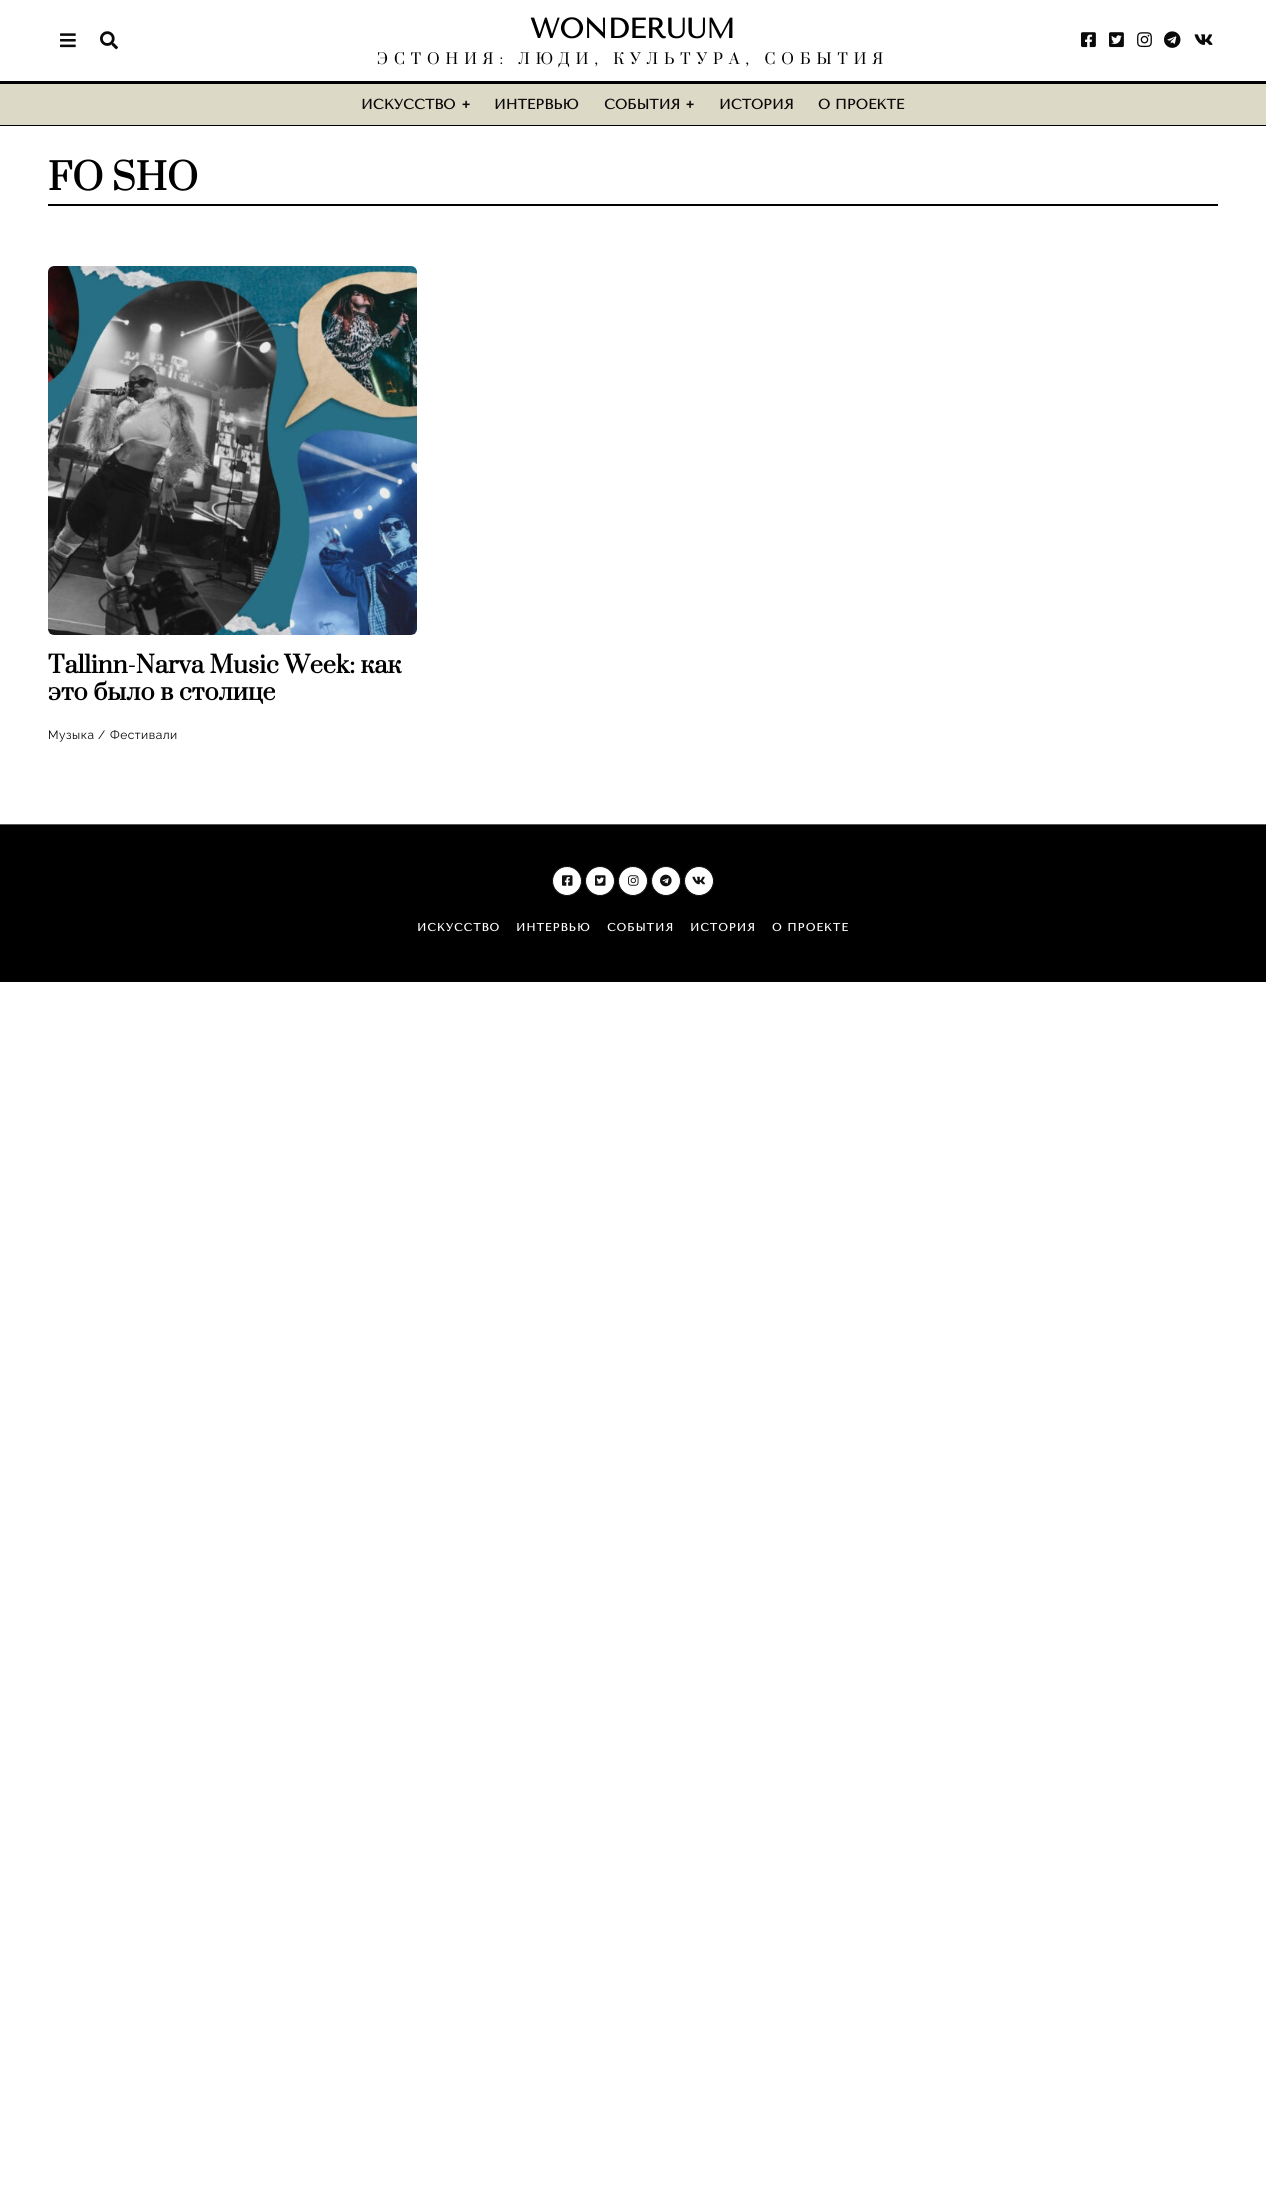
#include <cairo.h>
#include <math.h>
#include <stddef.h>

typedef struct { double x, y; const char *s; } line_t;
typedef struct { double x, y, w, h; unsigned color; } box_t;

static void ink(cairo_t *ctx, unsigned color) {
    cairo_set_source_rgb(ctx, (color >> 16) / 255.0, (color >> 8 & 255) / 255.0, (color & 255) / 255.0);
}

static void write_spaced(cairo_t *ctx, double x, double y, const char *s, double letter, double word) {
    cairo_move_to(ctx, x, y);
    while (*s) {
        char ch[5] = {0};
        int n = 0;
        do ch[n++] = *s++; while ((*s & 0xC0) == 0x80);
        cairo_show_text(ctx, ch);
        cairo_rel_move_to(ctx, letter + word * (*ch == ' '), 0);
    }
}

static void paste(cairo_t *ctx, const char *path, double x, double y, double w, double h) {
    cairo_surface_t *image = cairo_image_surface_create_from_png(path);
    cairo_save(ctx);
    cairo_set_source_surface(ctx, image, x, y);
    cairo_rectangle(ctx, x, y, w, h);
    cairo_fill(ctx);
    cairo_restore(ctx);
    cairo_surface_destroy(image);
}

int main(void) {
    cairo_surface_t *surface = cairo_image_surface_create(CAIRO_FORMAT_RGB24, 1266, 2203);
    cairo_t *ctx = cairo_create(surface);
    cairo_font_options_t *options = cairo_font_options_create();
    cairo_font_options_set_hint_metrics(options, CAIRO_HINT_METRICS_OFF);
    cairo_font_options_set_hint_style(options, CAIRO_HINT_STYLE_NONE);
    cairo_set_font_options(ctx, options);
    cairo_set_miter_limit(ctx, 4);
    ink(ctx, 0xFFFFFF);
    cairo_paint(ctx);
    paste(ctx, "media/1.png", 60, 33, 16, 15);
    paste(ctx, "media/2.png", 100, 31, 18, 19);
    cairo_select_font_face(ctx, "Tenor Sans", CAIRO_FONT_SLANT_NORMAL, CAIRO_FONT_WEIGHT_BOLD);
    cairo_set_font_size(ctx, 28);
    ink(ctx, 0x000000);
    cairo_move_to(ctx, 530, 38);
    cairo_show_text(ctx, "WONDERUUM");
    cairo_select_font_face(ctx, "Prata", CAIRO_FONT_SLANT_NORMAL, CAIRO_FONT_WEIGHT_NORMAL);
    cairo_set_font_size(ctx, 14.6);
    write_spaced(ctx, 377, 64, "ЭСТОНИЯ: ЛЮДИ, КУЛЬТУРА, СОБЫТИЯ", 6, 0);
    paste(ctx, "media/3.png", 1081, 32, 15, 16);
    paste(ctx, "media/4.png", 1109, 32, 15, 16);
    paste(ctx, "media/5.png", 1137, 32, 15, 16);
    paste(ctx, "media/6.png", 1164, 31, 17, 17);
    paste(ctx, "media/7.png", 1194, 34, 19, 11);
    {
        static const box_t items[] = {
            {0, 84, 1266, 41, 0xDDD9C7},
            {0, 81, 1266, 3, 0x000000},
            {0, 125, 1266, 1, 0x000000},
        };
        for (size_t i = 0; i < sizeof items / sizeof *items; i++) {
            ink(ctx, items[i].color);
            cairo_rectangle(ctx, items[i].x, items[i].y, items[i].w, items[i].h);
            cairo_fill(ctx);
        }
    }
    cairo_select_font_face(ctx, "Tenor Sans", CAIRO_FONT_SLANT_NORMAL, CAIRO_FONT_WEIGHT_BOLD);
    cairo_set_font_size(ctx, 14);
    ink(ctx, 0x0A0A0A);
    cairo_move_to(ctx, 361, 109);
    cairo_show_text(ctx, "ИСКУССТВО");
    cairo_select_font_face(ctx, "Liberation Sans", CAIRO_FONT_SLANT_NORMAL, CAIRO_FONT_WEIGHT_BOLD);
    cairo_move_to(ctx, 462, 109);
    cairo_show_text(ctx, "+");
    cairo_select_font_face(ctx, "Tenor Sans", CAIRO_FONT_SLANT_NORMAL, CAIRO_FONT_WEIGHT_BOLD);
    cairo_move_to(ctx, 494, 109);
    cairo_show_text(ctx, "ИНТЕРВЬЮ");
    cairo_move_to(ctx, 604, 109);
    cairo_show_text(ctx, "СОБЫТИЯ");
    cairo_select_font_face(ctx, "Liberation Sans", CAIRO_FONT_SLANT_NORMAL, CAIRO_FONT_WEIGHT_BOLD);
    cairo_move_to(ctx, 686, 109);
    cairo_show_text(ctx, "+");
    cairo_select_font_face(ctx, "Tenor Sans", CAIRO_FONT_SLANT_NORMAL, CAIRO_FONT_WEIGHT_BOLD);
    cairo_move_to(ctx, 719, 109);
    cairo_show_text(ctx, "ИСТОРИЯ");
    cairo_move_to(ctx, 818, 109);
    cairo_show_text(ctx, "О ПРОЕКТЕ");
    ink(ctx, 0x000000);
    cairo_rectangle(ctx, 48, 204, 1170, 2);
    cairo_fill(ctx);
    cairo_select_font_face(ctx, "Prata", CAIRO_FONT_SLANT_NORMAL, CAIRO_FONT_WEIGHT_BOLD);
    cairo_set_font_size(ctx, 36);
    cairo_move_to(ctx, 48, 190);
    cairo_show_text(ctx, "FO SHO");
    paste(ctx, "media/8.png", 48, 266, 369, 369);
    cairo_set_font_size(ctx, 23.4);
    cairo_move_to(ctx, 48, 673);
    cairo_show_text(ctx, "Tallinn-Narva Music Week: как");
    cairo_move_to(ctx, 48, 700);
    cairo_show_text(ctx, "это было в столице");
    cairo_select_font_face(ctx, "Raleway Thin", CAIRO_FONT_SLANT_NORMAL, CAIRO_FONT_WEIGHT_NORMAL);
    cairo_set_font_size(ctx, 12);
    {
        static const line_t items[] = {
            {48, 739, "Музыка"},
            {98, 739, "/"},
            {110, 739, "Фестивали"},
        };
        for (size_t i = 0; i < sizeof items / sizeof *items; i++) {
            write_spaced(ctx, items[i].x, items[i].y, items[i].s, 0.5, 0);
        }
    }
    cairo_rectangle(ctx, 0, 825, 1266, 157);
    cairo_fill(ctx);
    ink(ctx, 0x555555);
    cairo_rectangle(ctx, 0, 824, 1266, 1);
    cairo_fill(ctx);
    ink(ctx, 0xFFFFFF);
    cairo_arc(ctx, 567, 881, 14.5, 0, 2 * M_PI);
    cairo_fill_preserve(ctx);
    ink(ctx, 0x111111);
    cairo_set_line_width(ctx, 1);
    cairo_stroke(ctx);
    paste(ctx, "media/9.png", 562, 875, 11, 11);
    ink(ctx, 0xFFFFFF);
    cairo_arc(ctx, 600, 881, 14.5, 0, 2 * M_PI);
    cairo_fill_preserve(ctx);
    ink(ctx, 0x111111);
    cairo_stroke(ctx);
    paste(ctx, "media/10.png", 595, 875, 11, 11);
    ink(ctx, 0xFFFFFF);
    cairo_arc(ctx, 633, 881, 14.5, 0, 2 * M_PI);
    cairo_fill_preserve(ctx);
    ink(ctx, 0x111111);
    cairo_stroke(ctx);
    paste(ctx, "media/11.png", 628, 875, 11, 11);
    ink(ctx, 0xFFFFFF);
    cairo_arc(ctx, 666, 881, 14.5, 0, 2 * M_PI);
    cairo_fill_preserve(ctx);
    ink(ctx, 0x111111);
    cairo_stroke(ctx);
    paste(ctx, "media/12.png", 660, 874, 12, 13);
    ink(ctx, 0xFFFFFF);
    cairo_arc(ctx, 699, 881, 14.5, 0, 2 * M_PI);
    cairo_fill_preserve(ctx);
    ink(ctx, 0x111111);
    cairo_stroke(ctx);
    paste(ctx, "media/13.png", 692, 876, 13, 9);
    cairo_select_font_face(ctx, "Tenor Sans", CAIRO_FONT_SLANT_NORMAL, CAIRO_FONT_WEIGHT_BOLD);
    cairo_set_font_size(ctx, 11);
    ink(ctx, 0xFFFFFF);
    {
        static const line_t items[] = {
            {417, 931, "ИСКУССТВО"},
            {516, 931, "ИНТЕРВЬЮ"},
            {607, 931, "СОБЫТИЯ"},
            {690, 931, "ИСТОРИЯ"},
            {772, 931, "О ПРОЕКТЕ"},
        };
        for (size_t i = 0; i < sizeof items / sizeof *items; i++) {
            write_spaced(ctx, items[i].x, items[i].y, items[i].s, 1, 0);
        }
    }
    cairo_surface_write_to_png(surface, "image.png");
    cairo_font_options_destroy(options);
    cairo_destroy(ctx);
    cairo_surface_destroy(surface);
    return 0;
}
